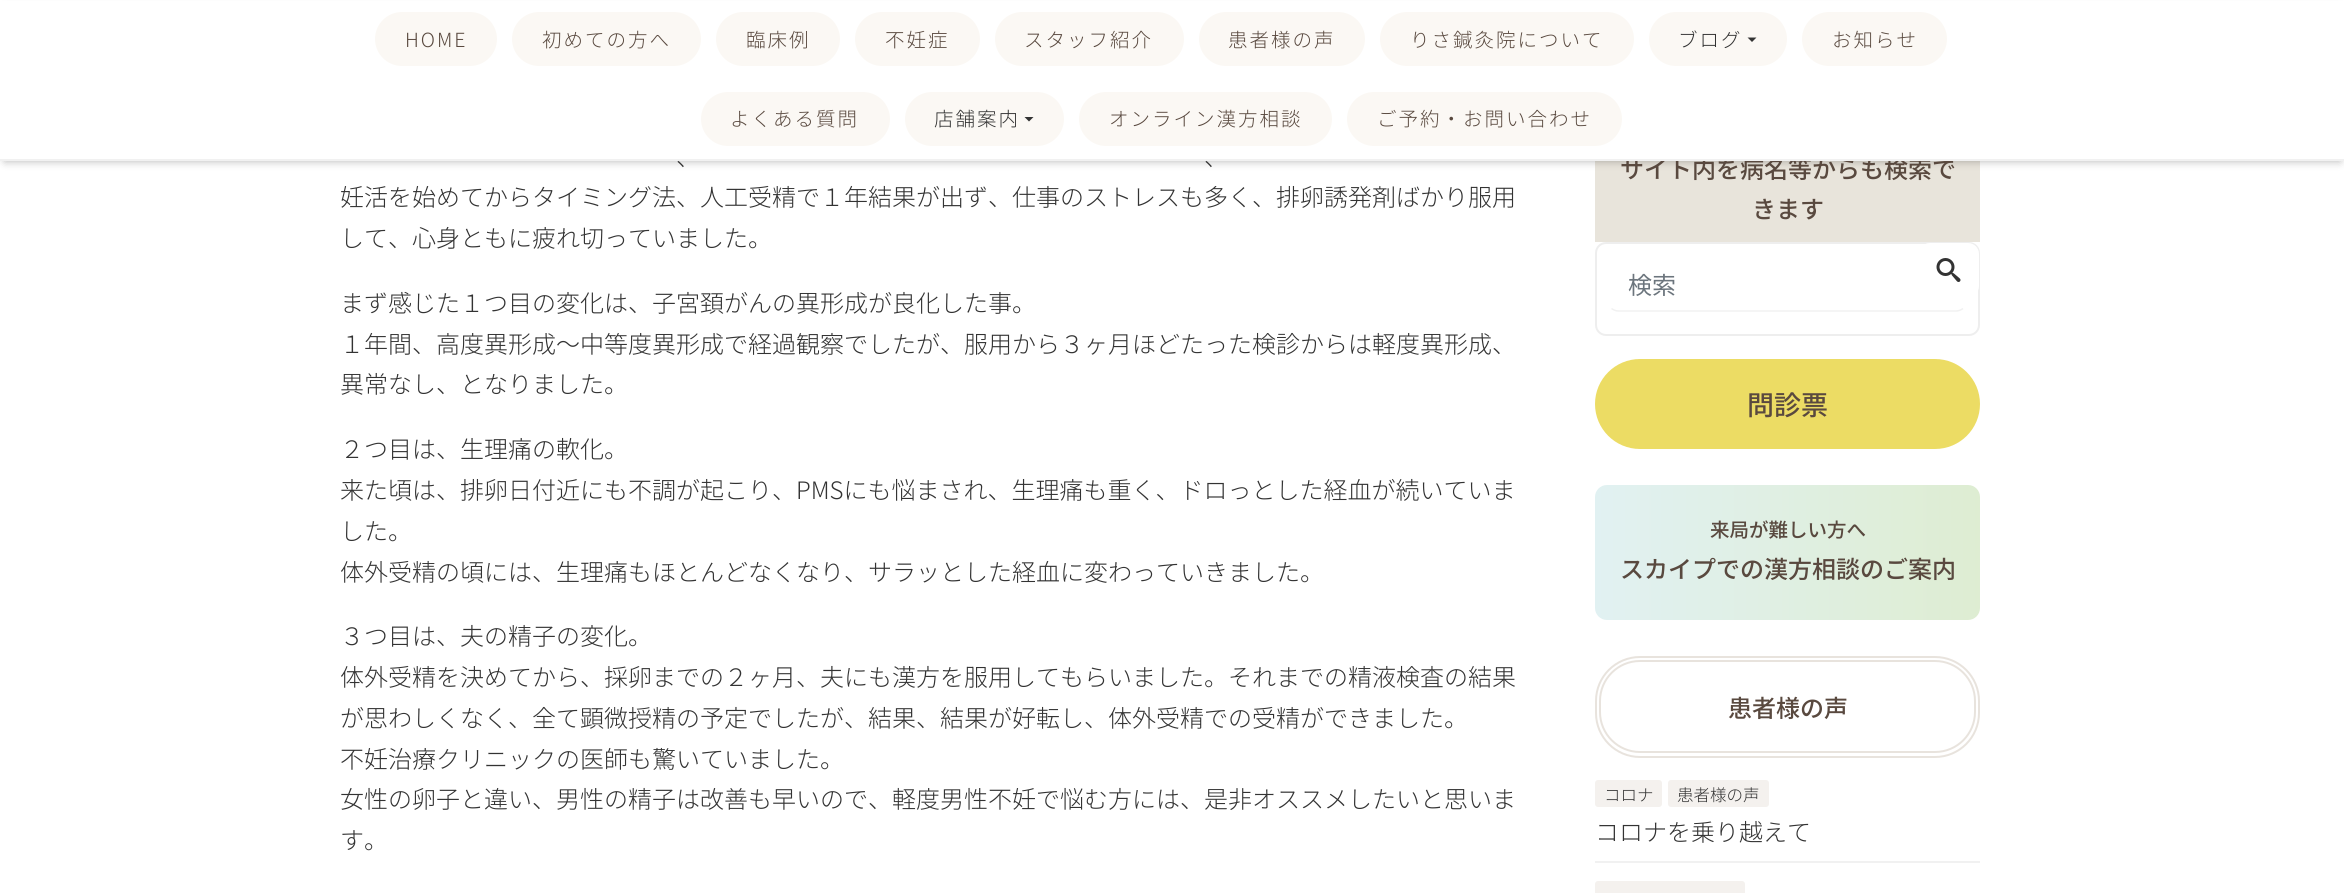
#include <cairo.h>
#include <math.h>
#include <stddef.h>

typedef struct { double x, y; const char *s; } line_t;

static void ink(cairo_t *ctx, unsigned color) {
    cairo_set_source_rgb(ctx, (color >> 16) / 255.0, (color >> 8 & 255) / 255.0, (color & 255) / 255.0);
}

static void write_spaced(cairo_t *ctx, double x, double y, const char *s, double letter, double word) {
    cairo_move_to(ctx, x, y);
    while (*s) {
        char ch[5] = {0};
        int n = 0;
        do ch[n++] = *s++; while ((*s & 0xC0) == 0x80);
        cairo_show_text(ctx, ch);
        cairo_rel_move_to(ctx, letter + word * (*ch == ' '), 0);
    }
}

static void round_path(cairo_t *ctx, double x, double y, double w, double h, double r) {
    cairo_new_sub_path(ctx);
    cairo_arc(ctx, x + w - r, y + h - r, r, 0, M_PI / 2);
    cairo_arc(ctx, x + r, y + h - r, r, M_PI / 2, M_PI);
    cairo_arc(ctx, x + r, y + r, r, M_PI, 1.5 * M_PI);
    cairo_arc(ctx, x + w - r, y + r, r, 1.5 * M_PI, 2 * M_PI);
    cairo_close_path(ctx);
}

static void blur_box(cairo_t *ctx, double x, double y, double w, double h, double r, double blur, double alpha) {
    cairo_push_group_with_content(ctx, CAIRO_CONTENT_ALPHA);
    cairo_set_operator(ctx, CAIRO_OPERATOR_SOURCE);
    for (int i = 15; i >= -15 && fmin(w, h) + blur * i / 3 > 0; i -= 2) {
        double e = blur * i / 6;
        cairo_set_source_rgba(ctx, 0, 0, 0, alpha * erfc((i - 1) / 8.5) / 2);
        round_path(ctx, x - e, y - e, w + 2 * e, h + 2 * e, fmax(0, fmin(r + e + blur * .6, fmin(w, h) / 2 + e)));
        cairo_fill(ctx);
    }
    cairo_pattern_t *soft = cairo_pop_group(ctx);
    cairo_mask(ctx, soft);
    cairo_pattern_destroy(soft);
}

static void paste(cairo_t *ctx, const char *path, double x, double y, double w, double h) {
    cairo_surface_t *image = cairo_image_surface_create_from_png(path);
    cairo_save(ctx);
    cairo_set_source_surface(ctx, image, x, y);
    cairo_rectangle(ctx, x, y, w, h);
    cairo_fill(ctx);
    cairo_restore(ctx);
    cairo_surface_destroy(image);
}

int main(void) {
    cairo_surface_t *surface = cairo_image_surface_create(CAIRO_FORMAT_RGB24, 2344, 893);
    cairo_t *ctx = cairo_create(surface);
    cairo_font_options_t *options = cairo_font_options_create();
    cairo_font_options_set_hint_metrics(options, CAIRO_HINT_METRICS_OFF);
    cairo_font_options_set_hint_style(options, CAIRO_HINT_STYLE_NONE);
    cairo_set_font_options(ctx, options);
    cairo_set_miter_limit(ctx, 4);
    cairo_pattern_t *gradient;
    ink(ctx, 0xFFFFFF);
    cairo_paint(ctx);
    ink(ctx, 0xE8E4DB);
    cairo_rectangle(ctx, 1595, 161, 385, 81);
    cairo_fill(ctx);
    ink(ctx, 0x000000);
    blur_box(ctx, 5, 9, 2335, 152, 0, 4.5, 0.3);
    cairo_select_font_face(ctx, "Noto Sans JP Medium", CAIRO_FONT_SLANT_NORMAL, CAIRO_FONT_WEIGHT_NORMAL);
    cairo_set_font_size(ctx, 24);
    ink(ctx, 0x59493F);
    cairo_move_to(ctx, 1620, 178);
    cairo_show_text(ctx, "サイト内を病名等からも検索で");
    ink(ctx, 0xFFFFFF);
    cairo_rectangle(ctx, 0, 1, 2344, 158);
    cairo_fill(ctx);
    cairo_select_font_face(ctx, "Noto Sans JP Light", CAIRO_FONT_SLANT_NORMAL, CAIRO_FONT_WEIGHT_NORMAL);
    ink(ctx, 0x333333);
    cairo_move_to(ctx, 676, 166);
    cairo_show_text(ctx, "、");
    cairo_move_to(ctx, 1204, 166);
    cairo_show_text(ctx, "、");
    ink(ctx, 0xF1F1F1);
    cairo_rectangle(ctx, 0, 159, 2344, 2);
    cairo_fill(ctx);
    ink(ctx, 0xFBF8F4);
    round_path(ctx, 375, 12, 122, 54, 27);
    cairo_fill(ctx);
    cairo_set_font_size(ctx, 19.5);
    ink(ctx, 0x59493F);
    write_spaced(ctx, 405, 47, "HOME", 2, 0);
    ink(ctx, 0xFBF8F4);
    round_path(ctx, 512, 12, 189, 54, 27);
    cairo_fill(ctx);
    ink(ctx, 0x59493F);
    write_spaced(ctx, 542, 47, "初めての方へ", 2, 0);
    ink(ctx, 0xFBF8F4);
    round_path(ctx, 716, 12, 124, 54, 27);
    cairo_fill(ctx);
    ink(ctx, 0x59493F);
    write_spaced(ctx, 746, 47, "臨床例", 2, 0);
    ink(ctx, 0xFBF8F4);
    round_path(ctx, 855, 12, 125, 54, 27);
    cairo_fill(ctx);
    ink(ctx, 0x59493F);
    write_spaced(ctx, 885, 47, "不妊症", 2, 0);
    ink(ctx, 0xFBF8F4);
    round_path(ctx, 995, 12, 189, 54, 27);
    cairo_fill(ctx);
    ink(ctx, 0x59493F);
    write_spaced(ctx, 1024, 47, "スタッフ紹介", 2, 0);
    ink(ctx, 0xFBF8F4);
    round_path(ctx, 1199, 12, 166, 54, 27);
    cairo_fill(ctx);
    ink(ctx, 0x59493F);
    write_spaced(ctx, 1228, 47, "患者様の声", 2, 0);
    ink(ctx, 0xFBF8F4);
    round_path(ctx, 1380, 12, 254, 54, 27);
    cairo_fill(ctx);
    ink(ctx, 0x59493F);
    write_spaced(ctx, 1410, 47, "りさ鍼灸院について", 2, 0);
    ink(ctx, 0xFBF8F4);
    round_path(ctx, 1649, 12, 138, 54, 27);
    cairo_fill(ctx);
    ink(ctx, 0x333333);
    write_spaced(ctx, 1678, 47, "ブログ", 2, 0);
    cairo_new_path(ctx);
    cairo_move_to(ctx, 1747.5, 37.5);
    cairo_line_to(ctx, 1756.5, 37.5);
    cairo_line_to(ctx, 1752, 42);
    cairo_close_path(ctx);
    cairo_fill(ctx);
    ink(ctx, 0xFBF8F4);
    round_path(ctx, 1802, 12, 145, 54, 27);
    cairo_fill(ctx);
    ink(ctx, 0x59493F);
    write_spaced(ctx, 1832, 47, "お知らせ", 2, 0);
    ink(ctx, 0xFBF8F4);
    round_path(ctx, 701, 92, 189, 54, 27);
    cairo_fill(ctx);
    ink(ctx, 0x59493F);
    write_spaced(ctx, 730, 126, "よくある質問", 2, 0);
    ink(ctx, 0xFBF8F4);
    round_path(ctx, 905, 92, 159, 54, 27);
    cairo_fill(ctx);
    ink(ctx, 0x333333);
    write_spaced(ctx, 934, 126, "店舗案内", 2, 0);
    cairo_new_path(ctx);
    cairo_move_to(ctx, 1024.5, 117);
    cairo_line_to(ctx, 1033.5, 117);
    cairo_line_to(ctx, 1029, 121.5);
    cairo_close_path(ctx);
    cairo_fill(ctx);
    ink(ctx, 0xFBF8F4);
    round_path(ctx, 1079, 92, 253, 54, 27);
    cairo_fill(ctx);
    ink(ctx, 0x59493F);
    write_spaced(ctx, 1109, 126, "オンライン漢方相談", 2, 0);
    ink(ctx, 0xFBF8F4);
    round_path(ctx, 1347, 92, 275, 54, 27);
    cairo_fill(ctx);
    ink(ctx, 0x59493F);
    write_spaced(ctx, 1377, 126, "ご予約・お問い合わせ", 2, 0);
    cairo_set_font_size(ctx, 24);
    ink(ctx, 0x333333);
    {
        static const line_t items[] = {
            {340, 206, "妊活を始めてからタイミング法、人工受精で１年結果が出ず、仕事のストレスも多く、排卵誘発剤ばかり服用"},
            {340, 247, "して、心身ともに疲れ切っていました。"},
            {340, 312, "まず感じた１つ目の変化は、子宮頚がんの異形成が良化した事。"},
            {340, 353, "１年間、高度異形成～中等度異形成で経過観察でしたが、服用から３ヶ月ほどたった検診からは軽度異形成、"},
            {340, 393, "異常なし、となりました。"},
            {340, 458, "２つ目は、生理痛の軟化。"},
            {340, 499, "来た頃は、排卵日付近にも不調が起こり、PMSにも悩まされ、生理痛も重く、ドロっとした経血が続いていま"},
            {340, 540, "した。"},
            {340, 581, "体外受精の頃には、生理痛もほとんどなくなり、サラッとした経血に変わっていきました。"},
            {340, 645, "３つ目は、夫の精子の変化。"},
            {340, 686, "体外受精を決めてから、採卵までの２ヶ月、夫にも漢方を服用してもらいました。それまでの精液検査の結果"},
            {340, 727, "が思わしくなく、全て顕微授精の予定でしたが、結果、結果が好転し、体外受精での受精ができました。"},
            {340, 768, "不妊治療クリニックの医師も驚いていました。"},
            {340, 808, "女性の卵子と違い、男性の精子は改善も早いので、軽度男性不妊で悩む方には、是非オススメしたいと思いま"},
            {340, 849, "す。"},
        };
        for (size_t i = 0; i < sizeof items / sizeof *items; i++) {
            cairo_move_to(ctx, items[i].x, items[i].y);
            cairo_show_text(ctx, items[i].s);
        }
    }
    cairo_select_font_face(ctx, "Noto Sans JP Medium", CAIRO_FONT_SLANT_NORMAL, CAIRO_FONT_WEIGHT_NORMAL);
    ink(ctx, 0x59493F);
    cairo_move_to(ctx, 1752, 218);
    cairo_show_text(ctx, "きます");
    round_path(ctx, 1596, 243, 383, 92, 10);
    ink(ctx, 0xEEEEEE);
    cairo_stroke(ctx);
    cairo_new_path(ctx);
    cairo_move_to(ctx, 1963, 308.5);
    cairo_curve_to(ctx, 1961, 310, 1958.5, 311, 1956, 311);
    cairo_line_to(ctx, 1618.5, 311);
    cairo_curve_to(ctx, 1616, 311, 1613.5, 310, 1611.5, 308.5);
    ink(ctx, 0xF1F1F1);
    cairo_set_line_width(ctx, 1.5);
    cairo_stroke(ctx);
    cairo_select_font_face(ctx, "Noto Sans JP", CAIRO_FONT_SLANT_NORMAL, CAIRO_FONT_WEIGHT_NORMAL);
    ink(ctx, 0x6C757D);
    cairo_move_to(ctx, 1628, 294);
    cairo_show_text(ctx, "検索");
    ink(ctx, 0xFFFFFF);
    round_path(ctx, 1919, 243, 60, 54, 11);
    cairo_fill(ctx);
    paste(ctx, "media/1.png", 1936, 258, 25, 24);
    ink(ctx, 0xECDC64);
    round_path(ctx, 1595, 359, 385, 90, 45);
    cairo_fill(ctx);
    cairo_select_font_face(ctx, "Noto Sans JP Medium", CAIRO_FONT_SLANT_NORMAL, CAIRO_FONT_WEIGHT_NORMAL);
    cairo_set_font_size(ctx, 27);
    ink(ctx, 0x59493F);
    cairo_move_to(ctx, 1747, 415);
    cairo_show_text(ctx, "問診票");
    gradient = cairo_pattern_create_linear(1595, 552, 1980, 552);
    cairo_pattern_add_color_stop_rgba(gradient, 0, 0.882, 0.945, 0.949, 1);
    cairo_pattern_add_color_stop_rgba(gradient, 1, 0.871, 0.929, 0.824, 1);
    cairo_set_source(ctx, gradient);
    cairo_pattern_destroy(gradient);
    round_path(ctx, 1595, 485, 385, 135, 12);
    cairo_fill(ctx);
    cairo_set_font_size(ctx, 19.5);
    ink(ctx, 0x59493F);
    cairo_move_to(ctx, 1710, 537);
    cairo_show_text(ctx, "来局が難しい方へ");
    cairo_set_font_size(ctx, 24);
    cairo_move_to(ctx, 1620, 578);
    cairo_show_text(ctx, "スカイプでの漢方相談のご案内");
    round_path(ctx, 1596, 657, 383, 100, 44);
    ink(ctx, 0xE8E3DD);
    cairo_set_line_width(ctx, 2);
    cairo_stroke(ctx);
    round_path(ctx, 1600, 661, 375, 91, 40);
    cairo_stroke(ctx);
    ink(ctx, 0x59493F);
    cairo_move_to(ctx, 1728, 717);
    cairo_show_text(ctx, "患者様の声");
    ink(ctx, 0xF1F1F1);
    cairo_rectangle(ctx, 1595, 861, 385, 2);
    cairo_fill(ctx);
    ink(ctx, 0xF4F1EE);
    round_path(ctx, 1595, 780, 67, 27, 3);
    cairo_fill(ctx);
    cairo_select_font_face(ctx, "Noto Sans JP Light", CAIRO_FONT_SLANT_NORMAL, CAIRO_FONT_WEIGHT_NORMAL);
    cairo_set_font_size(ctx, 16.5);
    ink(ctx, 0x333333);
    cairo_move_to(ctx, 1604, 801);
    cairo_show_text(ctx, "コロナ");
    ink(ctx, 0xF4F1EE);
    round_path(ctx, 1668, 780, 101, 27, 3);
    cairo_fill(ctx);
    ink(ctx, 0x333333);
    cairo_move_to(ctx, 1677, 801);
    cairo_show_text(ctx, "患者様の声");
    cairo_set_font_size(ctx, 24);
    cairo_move_to(ctx, 1595, 841);
    cairo_show_text(ctx, "コロナを乗り越えて");
    ink(ctx, 0xF4F1EE);
    round_path(ctx, 1595, 881, 150, 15, 3);
    cairo_fill(ctx);
    cairo_surface_write_to_png(surface, "image.png");
    cairo_font_options_destroy(options);
    cairo_destroy(ctx);
    cairo_surface_destroy(surface);
    return 0;
}
